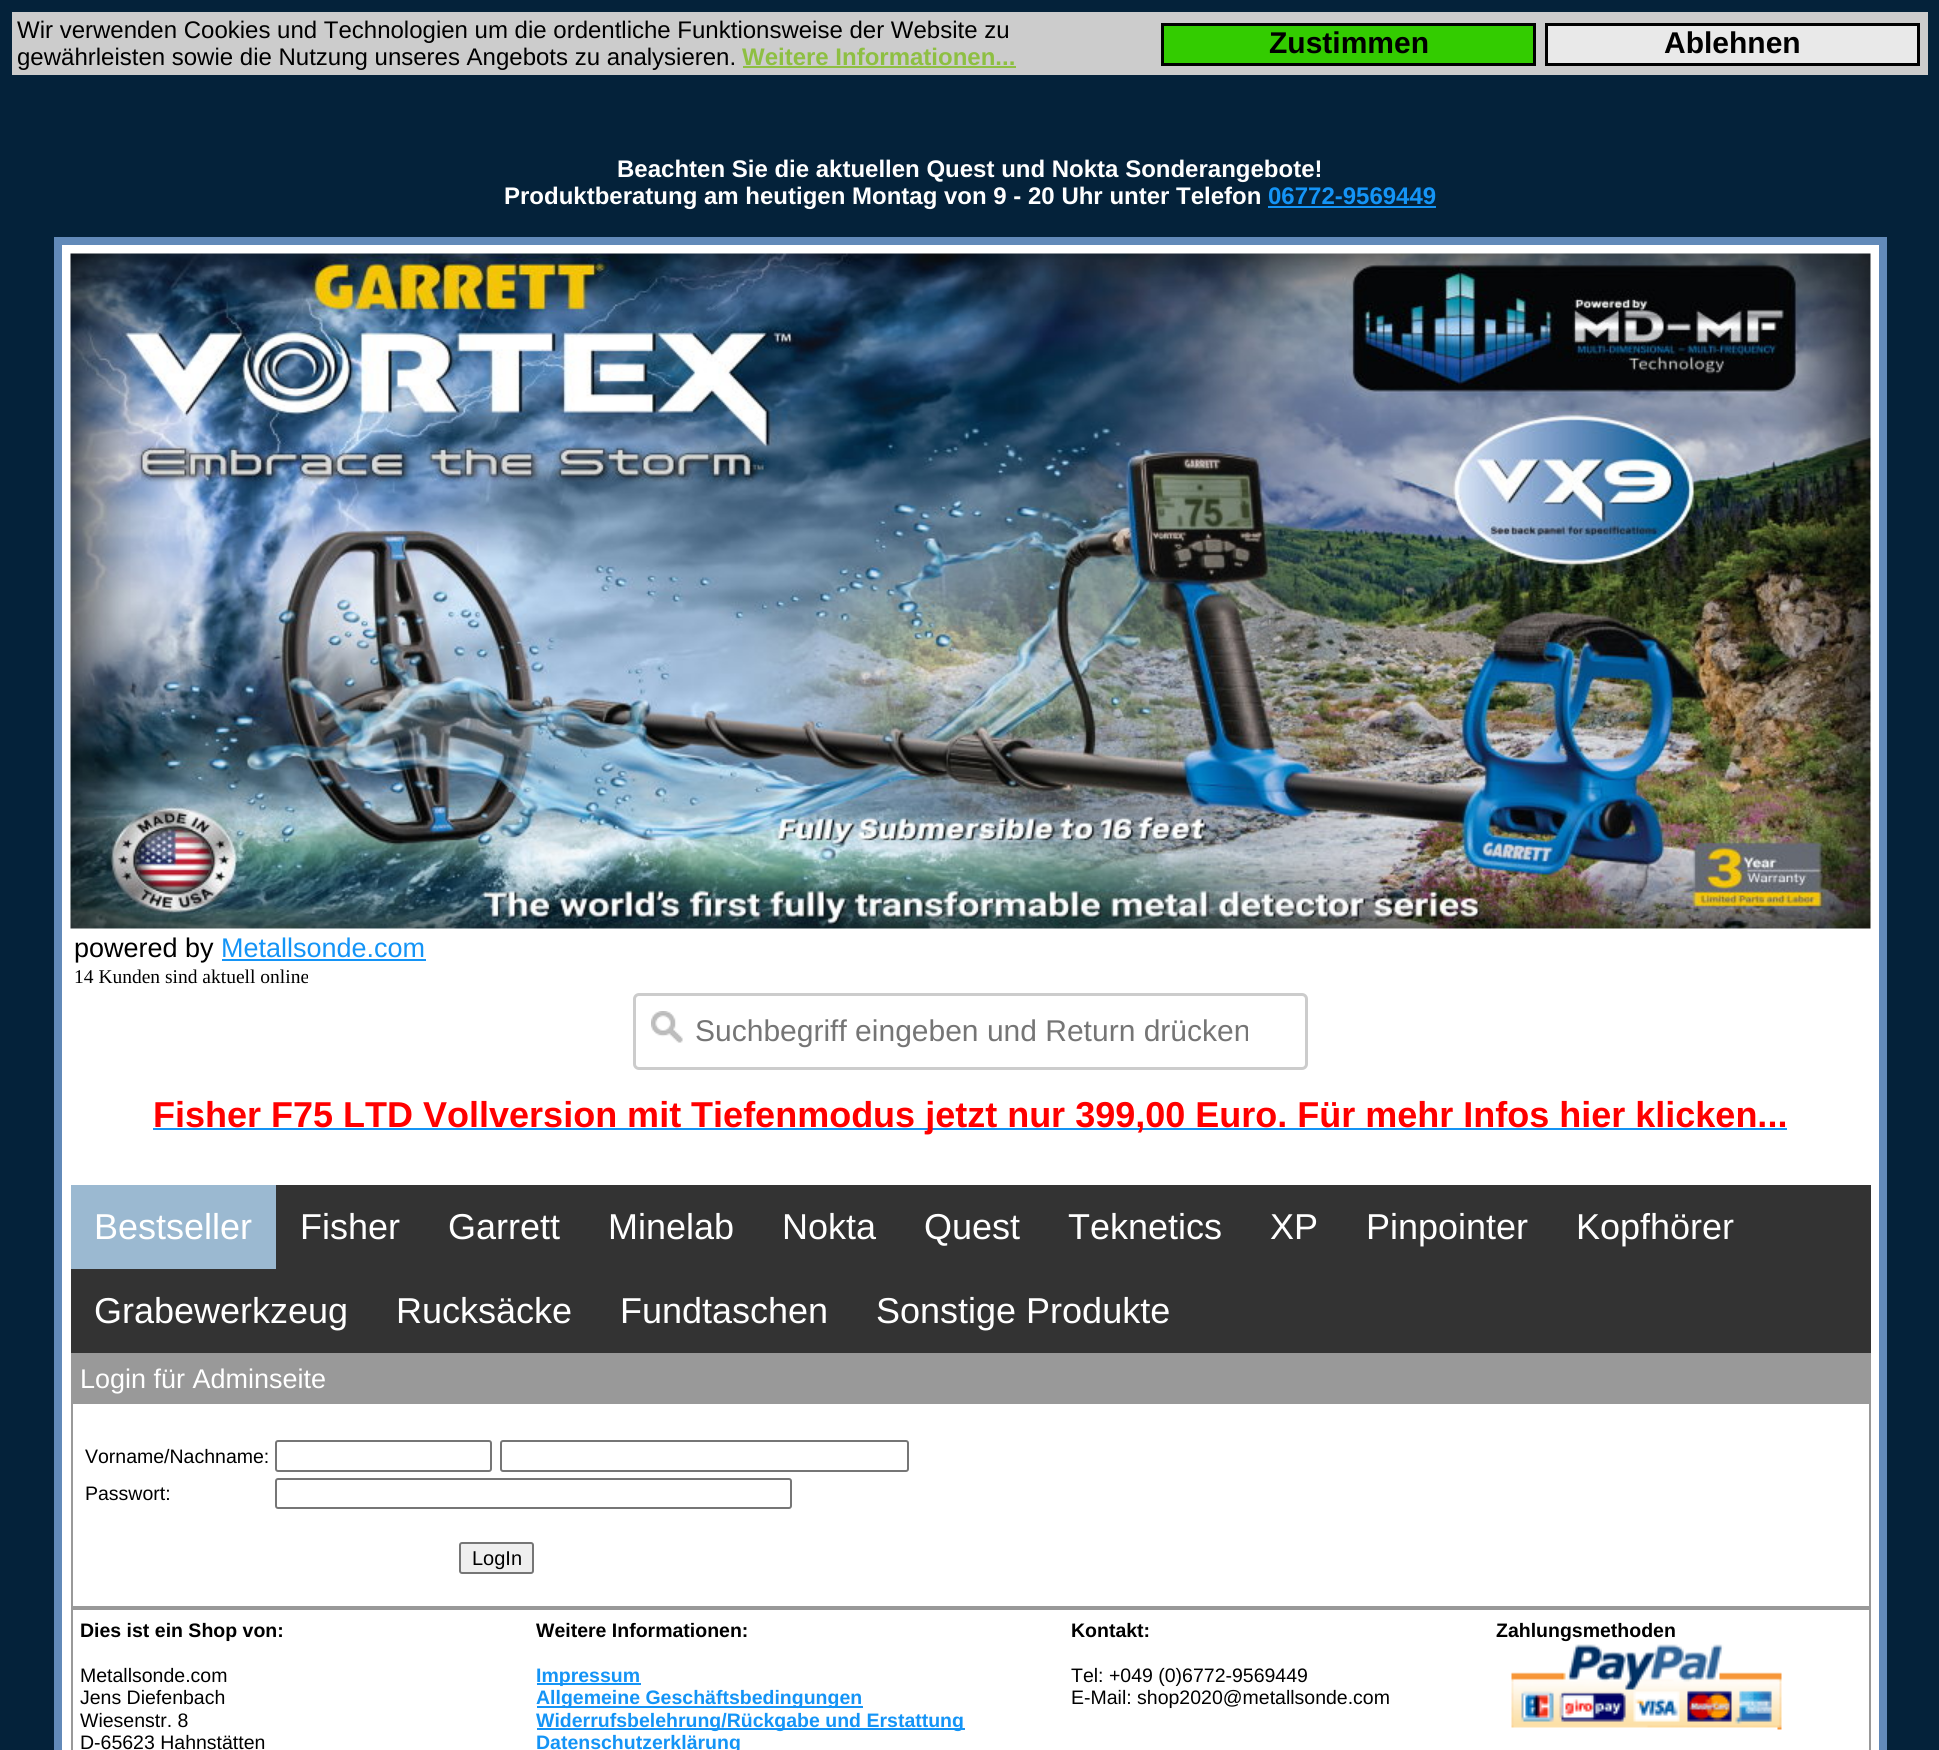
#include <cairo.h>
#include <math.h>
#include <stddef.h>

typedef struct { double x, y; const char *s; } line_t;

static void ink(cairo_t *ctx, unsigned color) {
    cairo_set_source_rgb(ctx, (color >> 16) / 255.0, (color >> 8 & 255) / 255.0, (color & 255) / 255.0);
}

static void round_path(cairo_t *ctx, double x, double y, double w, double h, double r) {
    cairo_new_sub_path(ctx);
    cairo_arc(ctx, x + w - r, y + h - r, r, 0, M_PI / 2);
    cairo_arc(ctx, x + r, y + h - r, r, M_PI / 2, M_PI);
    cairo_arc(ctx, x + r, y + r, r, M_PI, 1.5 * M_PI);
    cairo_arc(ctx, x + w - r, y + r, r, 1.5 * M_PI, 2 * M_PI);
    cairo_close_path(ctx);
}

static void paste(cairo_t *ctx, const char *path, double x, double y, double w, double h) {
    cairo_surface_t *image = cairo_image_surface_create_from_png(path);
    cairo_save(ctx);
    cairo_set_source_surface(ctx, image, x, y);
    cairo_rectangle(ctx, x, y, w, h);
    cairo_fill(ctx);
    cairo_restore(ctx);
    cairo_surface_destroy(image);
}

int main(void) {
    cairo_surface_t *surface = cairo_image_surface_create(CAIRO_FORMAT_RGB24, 1939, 1750);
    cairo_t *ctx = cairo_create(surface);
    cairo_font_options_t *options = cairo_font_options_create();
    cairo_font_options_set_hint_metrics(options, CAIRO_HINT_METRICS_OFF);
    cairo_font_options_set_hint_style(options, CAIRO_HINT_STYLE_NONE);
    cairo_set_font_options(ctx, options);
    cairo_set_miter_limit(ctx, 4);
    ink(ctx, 0x04223A);
    cairo_paint(ctx);
    ink(ctx, 0xCCCCCC);
    cairo_rectangle(ctx, 12, 12, 1916, 63);
    cairo_fill(ctx);
    cairo_select_font_face(ctx, "Liberation Sans", CAIRO_FONT_SLANT_NORMAL, CAIRO_FONT_WEIGHT_NORMAL);
    cairo_set_font_size(ctx, 24);
    ink(ctx, 0x000000);
    cairo_move_to(ctx, 17, 38);
    cairo_show_text(ctx, "Wir verwenden Cookies und Technologien um die ordentliche Funktionsweise der Website zu");
    cairo_move_to(ctx, 17, 65);
    cairo_show_text(ctx, "gewährleisten sowie die Nutzung unseres Angebots zu analysieren.");
    cairo_select_font_face(ctx, "Liberation Sans", CAIRO_FONT_SLANT_NORMAL, CAIRO_FONT_WEIGHT_BOLD);
    ink(ctx, 0x8EBF42);
    cairo_move_to(ctx, 742, 65);
    cairo_show_text(ctx, "Weitere Informationen...");
    cairo_rectangle(ctx, 743, 66, 273, 2);
    cairo_fill(ctx);
    ink(ctx, 0x33CC00);
    cairo_rectangle(ctx, 1162.5, 24.5, 372, 40);
    cairo_fill_preserve(ctx);
    ink(ctx, 0x000000);
    cairo_set_line_width(ctx, 3);
    cairo_stroke(ctx);
    cairo_set_font_size(ctx, 30);
    cairo_move_to(ctx, 1269, 53);
    cairo_show_text(ctx, "Zustimmen");
    ink(ctx, 0xE9E9E9);
    cairo_rectangle(ctx, 1546.5, 24.5, 372, 40);
    cairo_fill_preserve(ctx);
    ink(ctx, 0x000000);
    cairo_stroke(ctx);
    cairo_move_to(ctx, 1664, 53);
    cairo_show_text(ctx, "Ablehnen");
    cairo_set_font_size(ctx, 24);
    ink(ctx, 0xFFFFFF);
    cairo_move_to(ctx, 617, 177);
    cairo_show_text(ctx, "Beachten Sie die aktuellen Quest und Nokta Sonderangebote!");
    cairo_move_to(ctx, 504, 204);
    cairo_show_text(ctx, "Produktberatung am heutigen Montag von 9 - 20 Uhr unter Telefon");
    ink(ctx, 0x1494F6);
    cairo_move_to(ctx, 1268, 204);
    cairo_show_text(ctx, "06772-9569449");
    cairo_rectangle(ctx, 1268, 206, 168, 2);
    cairo_fill(ctx);
    ink(ctx, 0xFFFFFF);
    cairo_rectangle(ctx, 58, 241, 1825, 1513);
    cairo_fill_preserve(ctx);
    ink(ctx, 0x628AB9);
    cairo_set_line_width(ctx, 8);
    cairo_stroke(ctx);
    paste(ctx, "media/1.png", 70, 253, 1801, 676);
    cairo_select_font_face(ctx, "Liberation Sans", CAIRO_FONT_SLANT_NORMAL, CAIRO_FONT_WEIGHT_NORMAL);
    cairo_set_font_size(ctx, 27);
    ink(ctx, 0x000000);
    cairo_move_to(ctx, 74, 957);
    cairo_show_text(ctx, "powered by");
    ink(ctx, 0x1494F6);
    cairo_move_to(ctx, 221, 957);
    cairo_show_text(ctx, "Metallsonde.com");
    cairo_rectangle(ctx, 222, 959, 204, 2);
    cairo_fill(ctx);
    cairo_select_font_face(ctx, "Liberation Serif", CAIRO_FONT_SLANT_NORMAL, CAIRO_FONT_WEIGHT_NORMAL);
    cairo_set_font_size(ctx, 19.5);
    ink(ctx, 0x000000);
    cairo_move_to(ctx, 74, 983);
    cairo_show_text(ctx, "14 Kunden sind aktuell online");
    paste(ctx, "media/2.png", 651, 1011, 32, 32);
    round_path(ctx, 634.5, 994.5, 672, 74, 4.5);
    ink(ctx, 0xCCCCCC);
    cairo_set_line_width(ctx, 3);
    cairo_stroke(ctx);
    cairo_save(ctx);
    cairo_rectangle(ctx, 696, 1014, 552, 35);
    cairo_clip(ctx);
    cairo_select_font_face(ctx, "Liberation Sans", CAIRO_FONT_SLANT_NORMAL, CAIRO_FONT_WEIGHT_NORMAL);
    cairo_set_font_size(ctx, 30);
    ink(ctx, 0x757575);
    cairo_move_to(ctx, 695, 1041);
    cairo_show_text(ctx, "Suchbegriff eingeben und Return drücken");
    cairo_restore(ctx);
    ink(ctx, 0x1494F6);
    cairo_rectangle(ctx, 153, 1128, 1634, 2);
    cairo_fill(ctx);
    cairo_select_font_face(ctx, "Liberation Sans", CAIRO_FONT_SLANT_NORMAL, CAIRO_FONT_WEIGHT_BOLD);
    cairo_set_font_size(ctx, 36);
    ink(ctx, 0xFF0000);
    cairo_move_to(ctx, 153, 1127);
    cairo_show_text(ctx, "Fisher F75 LTD Vollversion mit Tiefenmodus jetzt nur 399,00 Euro. Für mehr Infos hier klicken...");
    ink(ctx, 0x333333);
    cairo_rectangle(ctx, 71, 1185, 1800, 168);
    cairo_fill(ctx);
    ink(ctx, 0x9BB9D1);
    cairo_rectangle(ctx, 71, 1185, 205, 84);
    cairo_fill(ctx);
    cairo_select_font_face(ctx, "Liberation Sans", CAIRO_FONT_SLANT_NORMAL, CAIRO_FONT_WEIGHT_NORMAL);
    ink(ctx, 0xFFFFFF);
    {
        static const line_t items[] = {
            {94, 1239, "Bestseller"},
            {300, 1239, "Fisher"},
            {448, 1239, "Garrett"},
            {608, 1239, "Minelab"},
            {782, 1239, "Nokta"},
            {924, 1239, "Quest"},
            {1068, 1239, "Teknetics"},
            {1270, 1239, "XP"},
            {1366, 1239, "Pinpointer"},
            {1576, 1239, "Kopfhörer"},
            {94, 1323, "Grabewerkzeug"},
            {396, 1323, "Rucksäcke"},
            {620, 1323, "Fundtaschen"},
            {876, 1323, "Sonstige Produkte"},
        };
        for (size_t i = 0; i < sizeof items / sizeof *items; i++) {
            cairo_move_to(ctx, items[i].x, items[i].y);
            cairo_show_text(ctx, items[i].s);
        }
    }
    cairo_rectangle(ctx, 72, 1354, 1798, 253);
    ink(ctx, 0x999999);
    cairo_set_line_width(ctx, 2);
    cairo_stroke(ctx);
    cairo_rectangle(ctx, 73, 1355, 1796, 49);
    cairo_fill(ctx);
    cairo_set_font_size(ctx, 27);
    ink(ctx, 0xFFFFFF);
    cairo_move_to(ctx, 80, 1388);
    cairo_show_text(ctx, "Login für Adminseite");
    cairo_set_font_size(ctx, 19.5);
    ink(ctx, 0x000000);
    cairo_move_to(ctx, 85, 1463);
    cairo_show_text(ctx, "Vorname/Nachname:");
    round_path(ctx, 276, 1441, 215, 30, 2);
    ink(ctx, 0x767676);
    cairo_stroke(ctx);
    round_path(ctx, 501, 1441, 407, 30, 2);
    cairo_stroke(ctx);
    ink(ctx, 0x000000);
    cairo_move_to(ctx, 85, 1500);
    cairo_show_text(ctx, "Passwort:");
    round_path(ctx, 276, 1479, 515, 29, 2);
    ink(ctx, 0x767676);
    cairo_stroke(ctx);
    ink(ctx, 0xEFEFEF);
    round_path(ctx, 460, 1543, 73, 30, 2);
    cairo_fill_preserve(ctx);
    ink(ctx, 0x767676);
    cairo_stroke(ctx);
    cairo_set_font_size(ctx, 20);
    ink(ctx, 0x000000);
    cairo_move_to(ctx, 472, 1565);
    cairo_show_text(ctx, "LogIn");
    cairo_rectangle(ctx, 72, 1609, 1798, 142);
    ink(ctx, 0x999999);
    cairo_stroke(ctx);
    cairo_select_font_face(ctx, "Liberation Sans", CAIRO_FONT_SLANT_NORMAL, CAIRO_FONT_WEIGHT_BOLD);
    cairo_set_font_size(ctx, 19.5);
    ink(ctx, 0x000000);
    cairo_move_to(ctx, 80, 1637);
    cairo_show_text(ctx, "Dies ist ein Shop von:");
    cairo_select_font_face(ctx, "Liberation Sans", CAIRO_FONT_SLANT_NORMAL, CAIRO_FONT_WEIGHT_NORMAL);
    {
        static const line_t items[] = {
            {80, 1682, "Metallsonde.com"},
            {80, 1704, "Jens Diefenbach"},
            {80, 1727, "Wiesenstr. 8"},
            {80, 1749, "D-65623 Hahnstätten"},
        };
        for (size_t i = 0; i < sizeof items / sizeof *items; i++) {
            cairo_move_to(ctx, items[i].x, items[i].y);
            cairo_show_text(ctx, items[i].s);
        }
    }
    cairo_select_font_face(ctx, "Liberation Sans", CAIRO_FONT_SLANT_NORMAL, CAIRO_FONT_WEIGHT_BOLD);
    cairo_move_to(ctx, 536, 1637);
    cairo_show_text(ctx, "Weitere Informationen:");
    ink(ctx, 0x1494F6);
    cairo_rectangle(ctx, 537, 1683, 104, 2);
    cairo_fill(ctx);
    cairo_move_to(ctx, 536, 1682);
    cairo_show_text(ctx, "Impressum");
    cairo_rectangle(ctx, 537, 1706, 326, 2);
    cairo_fill(ctx);
    cairo_move_to(ctx, 536, 1704);
    cairo_show_text(ctx, "Allgemeine Geschäftsbedingungen");
    cairo_rectangle(ctx, 537, 1728, 428, 2);
    cairo_fill(ctx);
    cairo_move_to(ctx, 536, 1727);
    cairo_show_text(ctx, "Widerrufsbelehrung/Rückgabe und Erstattung");
    cairo_move_to(ctx, 536, 1749);
    cairo_show_text(ctx, "Datenschutzerklärung");
    ink(ctx, 0x000000);
    cairo_move_to(ctx, 1071, 1637);
    cairo_show_text(ctx, "Kontakt:");
    cairo_select_font_face(ctx, "Liberation Sans", CAIRO_FONT_SLANT_NORMAL, CAIRO_FONT_WEIGHT_NORMAL);
    cairo_move_to(ctx, 1071, 1682);
    cairo_show_text(ctx, "Tel: +049 (0)6772-9569449");
    cairo_move_to(ctx, 1071, 1704);
    cairo_show_text(ctx, "E-Mail: shop2020@metallsonde.com");
    cairo_select_font_face(ctx, "Liberation Sans", CAIRO_FONT_SLANT_NORMAL, CAIRO_FONT_WEIGHT_BOLD);
    cairo_move_to(ctx, 1496, 1637);
    cairo_show_text(ctx, "Zahlungsmethoden");
    paste(ctx, "media/3.png", 1511, 1644, 271, 86);
    cairo_surface_write_to_png(surface, "image.png");
    cairo_font_options_destroy(options);
    cairo_destroy(ctx);
    cairo_surface_destroy(surface);
    return 0;
}
